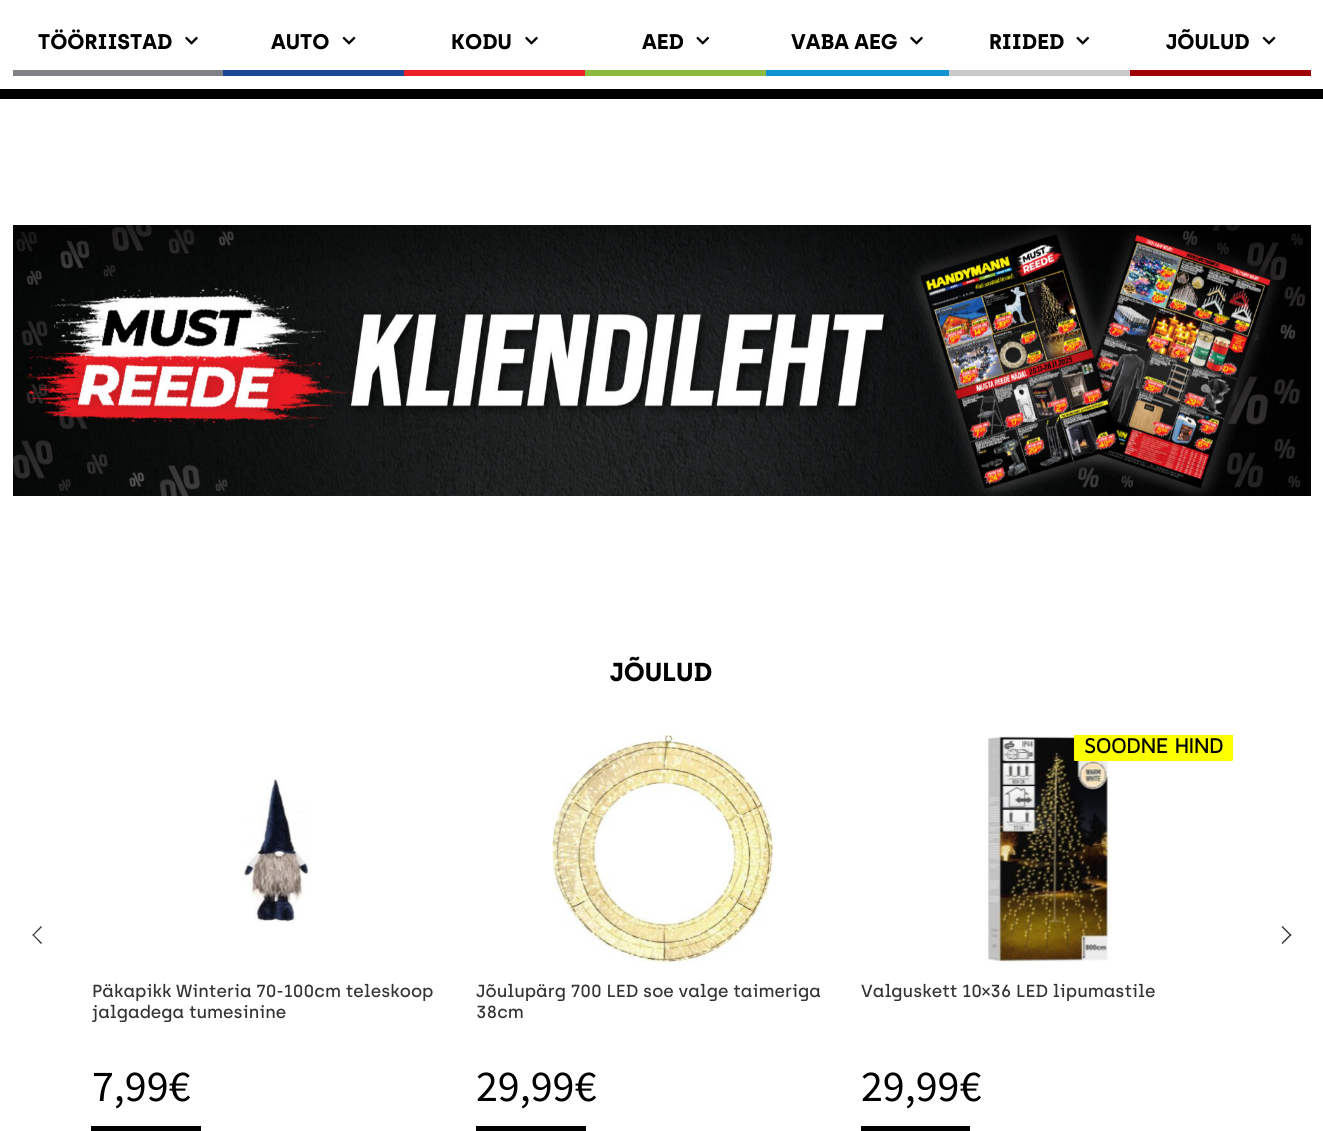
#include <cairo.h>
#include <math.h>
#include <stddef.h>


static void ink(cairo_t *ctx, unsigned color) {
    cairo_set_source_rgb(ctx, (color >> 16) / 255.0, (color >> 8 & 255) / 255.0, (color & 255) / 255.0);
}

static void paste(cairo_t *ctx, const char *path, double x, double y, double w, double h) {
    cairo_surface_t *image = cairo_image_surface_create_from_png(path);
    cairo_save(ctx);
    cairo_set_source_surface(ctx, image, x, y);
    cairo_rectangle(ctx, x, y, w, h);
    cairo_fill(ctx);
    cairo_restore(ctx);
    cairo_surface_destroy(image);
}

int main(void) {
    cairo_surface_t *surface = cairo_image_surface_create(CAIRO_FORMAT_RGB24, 1323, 1131);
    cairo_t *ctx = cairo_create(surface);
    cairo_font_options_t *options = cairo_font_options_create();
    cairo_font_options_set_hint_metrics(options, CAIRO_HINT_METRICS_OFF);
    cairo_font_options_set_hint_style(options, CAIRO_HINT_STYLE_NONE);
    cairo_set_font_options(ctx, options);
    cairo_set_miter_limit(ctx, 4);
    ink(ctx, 0xFFFFFF);
    cairo_paint(ctx);
    ink(ctx, 0x808285);
    cairo_rectangle(ctx, 13, 70, 210, 6);
    cairo_fill(ctx);
    cairo_select_font_face(ctx, "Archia", CAIRO_FONT_SLANT_NORMAL, CAIRO_FONT_WEIGHT_BOLD);
    cairo_set_font_size(ctx, 21.25);
    ink(ctx, 0x000000);
    cairo_move_to(ctx, 38, 49);
    cairo_show_text(ctx, "TÖÖRIISTAD");
    paste(ctx, "media/1.png", 185, 36, 13, 9);
    ink(ctx, 0x1E4698);
    cairo_rectangle(ctx, 223, 70, 181, 6);
    cairo_fill(ctx);
    ink(ctx, 0x000000);
    cairo_move_to(ctx, 271, 49);
    cairo_show_text(ctx, "AUTO");
    paste(ctx, "media/2.png", 342, 36, 14, 9);
    ink(ctx, 0xEC2027);
    cairo_rectangle(ctx, 404, 70, 181, 6);
    cairo_fill(ctx);
    ink(ctx, 0x000000);
    cairo_move_to(ctx, 451, 49);
    cairo_show_text(ctx, "KODU");
    paste(ctx, "media/1.png", 525, 36, 13, 9);
    ink(ctx, 0x8CBA3F);
    cairo_rectangle(ctx, 585, 70, 181, 6);
    cairo_fill(ctx);
    ink(ctx, 0x000000);
    cairo_move_to(ctx, 642, 49);
    cairo_show_text(ctx, "AED");
    paste(ctx, "media/3.png", 696, 36, 13, 9);
    ink(ctx, 0x1193D1);
    cairo_rectangle(ctx, 766, 70, 183, 6);
    cairo_fill(ctx);
    ink(ctx, 0x000000);
    cairo_move_to(ctx, 791, 49);
    cairo_show_text(ctx, "VABA AEG");
    paste(ctx, "media/1.png", 910, 36, 13, 9);
    ink(ctx, 0xC9C9C9);
    cairo_rectangle(ctx, 949, 70, 181, 6);
    cairo_fill(ctx);
    ink(ctx, 0x000000);
    cairo_move_to(ctx, 989, 49);
    cairo_show_text(ctx, "RIIDED");
    paste(ctx, "media/3.png", 1076, 36, 13, 9);
    ink(ctx, 0x9F0006);
    cairo_rectangle(ctx, 1130, 70, 181, 6);
    cairo_fill(ctx);
    ink(ctx, 0x000000);
    cairo_move_to(ctx, 1166, 49);
    cairo_show_text(ctx, "JÕULUD");
    paste(ctx, "media/2.png", 1262, 36, 14, 9);
    cairo_rectangle(ctx, 0, 89, 1323, 10);
    cairo_fill(ctx);
    paste(ctx, "media/4.png", 13, 225, 1298, 271);
    cairo_set_font_size(ctx, 26);
    cairo_move_to(ctx, 610, 681);
    cairo_show_text(ctx, "JÕULUD");
    paste(ctx, "media/5.png", 241, 776, 69, 147);
    cairo_select_font_face(ctx, "Archia Medium", CAIRO_FONT_SLANT_NORMAL, CAIRO_FONT_WEIGHT_NORMAL);
    cairo_set_font_size(ctx, 17.5);
    ink(ctx, 0x333333);
    cairo_move_to(ctx, 92, 997);
    cairo_show_text(ctx, "Päkapikk Winteria 70-100cm teleskoop");
    cairo_move_to(ctx, 92, 1018);
    cairo_show_text(ctx, "jalgadega tumesinine");
    cairo_select_font_face(ctx, "Source Sans Pro", CAIRO_FONT_SLANT_NORMAL, CAIRO_FONT_WEIGHT_NORMAL);
    cairo_set_font_size(ctx, 44);
    ink(ctx, 0x000000);
    cairo_move_to(ctx, 92, 1101);
    cairo_show_text(ctx, "7,99€");
    cairo_rectangle(ctx, 91, 1126, 110, 5);
    cairo_fill(ctx);
    paste(ctx, "media/6.png", 552, 735, 221, 228);
    cairo_select_font_face(ctx, "Archia Medium", CAIRO_FONT_SLANT_NORMAL, CAIRO_FONT_WEIGHT_NORMAL);
    cairo_set_font_size(ctx, 17.5);
    ink(ctx, 0x333333);
    cairo_move_to(ctx, 476, 997);
    cairo_show_text(ctx, "Jõulupärg 700 LED soe valge taimeriga");
    cairo_move_to(ctx, 476, 1018);
    cairo_show_text(ctx, "38cm");
    cairo_select_font_face(ctx, "Source Sans Pro", CAIRO_FONT_SLANT_NORMAL, CAIRO_FONT_WEIGHT_NORMAL);
    cairo_set_font_size(ctx, 44);
    ink(ctx, 0x000000);
    cairo_move_to(ctx, 476, 1101);
    cairo_show_text(ctx, "29,99€");
    cairo_rectangle(ctx, 476, 1126, 110, 5);
    cairo_fill(ctx);
    paste(ctx, "media/7.png", 988, 736, 124, 226);
    ink(ctx, 0xFBFF00);
    cairo_new_path(ctx);
    cairo_move_to(ctx, 1074, 735);
    cairo_line_to(ctx, 1233, 735);
    cairo_line_to(ctx, 1233, 760);
    cairo_curve_to(ctx, 1233, 760.5, 1232.5, 761, 1232, 761);
    cairo_line_to(ctx, 1075, 761);
    cairo_curve_to(ctx, 1074.5, 761, 1074, 760.5, 1074, 760);
    cairo_close_path(ctx);
    cairo_fill(ctx);
    cairo_select_font_face(ctx, "Maven Pro", CAIRO_FONT_SLANT_NORMAL, CAIRO_FONT_WEIGHT_BOLD);
    cairo_set_font_size(ctx, 21.25);
    ink(ctx, 0x000000);
    cairo_move_to(ctx, 1084, 753);
    cairo_show_text(ctx, "SOODNE HIND");
    cairo_select_font_face(ctx, "Archia Medium", CAIRO_FONT_SLANT_NORMAL, CAIRO_FONT_WEIGHT_NORMAL);
    cairo_set_font_size(ctx, 17.5);
    ink(ctx, 0x333333);
    cairo_move_to(ctx, 861, 997);
    cairo_show_text(ctx, "Valguskett 10×36 LED lipumastile");
    cairo_select_font_face(ctx, "Source Sans Pro", CAIRO_FONT_SLANT_NORMAL, CAIRO_FONT_WEIGHT_NORMAL);
    cairo_set_font_size(ctx, 44);
    ink(ctx, 0x000000);
    cairo_move_to(ctx, 861, 1101);
    cairo_show_text(ctx, "29,99€");
    cairo_rectangle(ctx, 861, 1126, 109, 5);
    cairo_fill(ctx);
    ink(ctx, 0x333333);
    cairo_new_path(ctx);
    cairo_move_to(ctx, 41, 944);
    cairo_line_to(ctx, 32.5, 935);
    cairo_line_to(ctx, 33, 934);
    cairo_line_to(ctx, 42, 943);
    cairo_close_path(ctx);
    cairo_fill(ctx);
    cairo_new_path(ctx);
    cairo_move_to(ctx, 33, 936);
    cairo_line_to(ctx, 32.5, 935);
    cairo_line_to(ctx, 41, 926);
    cairo_line_to(ctx, 42, 927);
    cairo_close_path(ctx);
    cairo_fill(ctx);
    cairo_new_path(ctx);
    cairo_move_to(ctx, 1282.5, 926);
    cairo_line_to(ctx, 1291.5, 935);
    cairo_line_to(ctx, 1290.5, 936);
    cairo_line_to(ctx, 1281.5, 927);
    cairo_close_path(ctx);
    cairo_fill(ctx);
    cairo_new_path(ctx);
    cairo_move_to(ctx, 1290.5, 934);
    cairo_line_to(ctx, 1291.5, 935);
    cairo_line_to(ctx, 1282.5, 944);
    cairo_line_to(ctx, 1281.5, 943);
    cairo_close_path(ctx);
    cairo_fill(ctx);
    cairo_surface_write_to_png(surface, "image.png");
    cairo_font_options_destroy(options);
    cairo_destroy(ctx);
    cairo_surface_destroy(surface);
    return 0;
}
